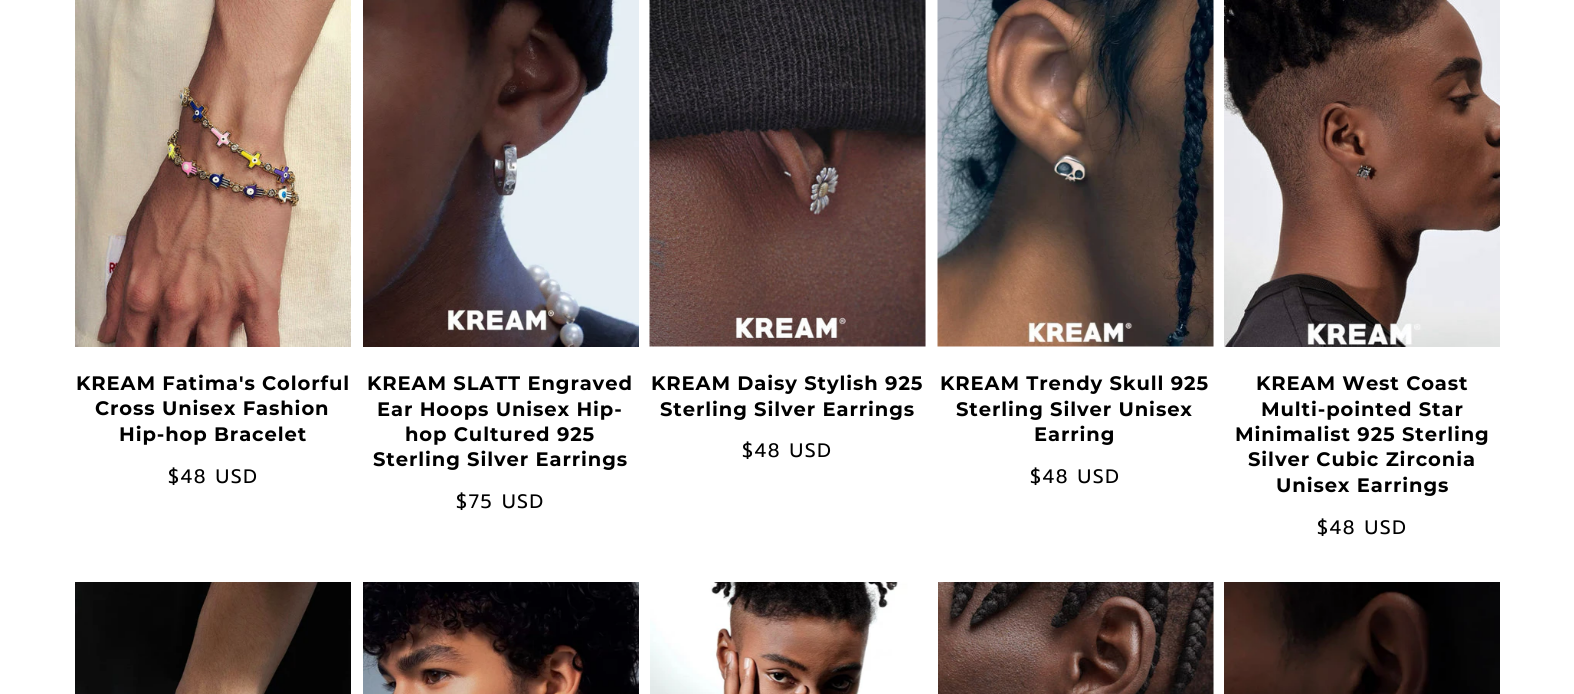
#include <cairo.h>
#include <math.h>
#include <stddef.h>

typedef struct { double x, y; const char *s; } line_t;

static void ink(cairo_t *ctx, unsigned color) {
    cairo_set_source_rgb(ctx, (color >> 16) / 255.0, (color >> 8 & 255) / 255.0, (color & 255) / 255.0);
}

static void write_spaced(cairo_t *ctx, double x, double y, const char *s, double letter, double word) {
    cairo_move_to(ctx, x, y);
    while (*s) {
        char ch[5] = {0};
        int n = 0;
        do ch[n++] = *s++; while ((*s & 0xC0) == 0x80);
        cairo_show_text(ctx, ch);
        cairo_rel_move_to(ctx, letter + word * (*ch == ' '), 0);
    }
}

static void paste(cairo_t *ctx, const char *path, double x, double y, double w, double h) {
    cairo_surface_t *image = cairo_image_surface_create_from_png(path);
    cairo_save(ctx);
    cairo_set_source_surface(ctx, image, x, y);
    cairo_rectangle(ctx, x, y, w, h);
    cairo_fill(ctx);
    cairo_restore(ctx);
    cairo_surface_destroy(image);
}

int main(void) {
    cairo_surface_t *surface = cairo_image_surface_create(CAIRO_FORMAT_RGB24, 1574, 694);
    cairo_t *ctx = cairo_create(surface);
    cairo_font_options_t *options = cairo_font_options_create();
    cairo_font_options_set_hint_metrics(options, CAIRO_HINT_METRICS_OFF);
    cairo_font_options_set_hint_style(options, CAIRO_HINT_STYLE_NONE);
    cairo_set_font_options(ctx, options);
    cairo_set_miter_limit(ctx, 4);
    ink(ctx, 0xFFFFFF);
    cairo_paint(ctx);
    paste(ctx, "media/1.png", 75, 0, 276, 347);
    cairo_select_font_face(ctx, "Montserrat", CAIRO_FONT_SLANT_NORMAL, CAIRO_FONT_WEIGHT_BOLD);
    cairo_set_font_size(ctx, 19.5);
    ink(ctx, 0x000000);
    {
        static const line_t items[] = {
            {76, 390, "KREAM Fatima's Colorful"},
            {95, 415, "Cross Unisex Fashion"},
            {119, 441, "Hip-hop Bracelet"},
        };
        for (size_t i = 0; i < sizeof items / sizeof *items; i++) {
            write_spaced(ctx, items[i].x, items[i].y, items[i].s, 0.9, 0);
        }
    }
    cairo_select_font_face(ctx, "Prompt", CAIRO_FONT_SLANT_NORMAL, CAIRO_FONT_WEIGHT_NORMAL);
    write_spaced(ctx, 168, 483, "$48 USD", 1.5, 0);
    paste(ctx, "media/2.png", 363, 0, 276, 347);
    cairo_select_font_face(ctx, "Montserrat", CAIRO_FONT_SLANT_NORMAL, CAIRO_FONT_WEIGHT_BOLD);
    {
        static const line_t items[] = {
            {367, 390, "KREAM SLATT Engraved"},
            {377, 416, "Ear Hoops Unisex Hip-"},
            {405, 441, "hop Cultured 925"},
            {373, 466, "Sterling Silver Earrings"},
        };
        for (size_t i = 0; i < sizeof items / sizeof *items; i++) {
            write_spaced(ctx, items[i].x, items[i].y, items[i].s, 0.9, 0);
        }
    }
    cairo_select_font_face(ctx, "Prompt", CAIRO_FONT_SLANT_NORMAL, CAIRO_FONT_WEIGHT_NORMAL);
    write_spaced(ctx, 456, 508, "$75 USD", 1.5, 0);
    ink(ctx, 0xF8F8F8);
    cairo_rectangle(ctx, 925, 0, 1, 345);
    cairo_fill(ctx);
    paste(ctx, "media/3.png", 649, 0, 277, 347);
    cairo_select_font_face(ctx, "Montserrat", CAIRO_FONT_SLANT_NORMAL, CAIRO_FONT_WEIGHT_BOLD);
    ink(ctx, 0x000000);
    write_spaced(ctx, 651, 390, "KREAM Daisy Stylish 925", 0.9, 0);
    write_spaced(ctx, 660, 416, "Sterling Silver Earrings", 0.9, 0);
    cairo_select_font_face(ctx, "Prompt", CAIRO_FONT_SLANT_NORMAL, CAIRO_FONT_WEIGHT_NORMAL);
    write_spaced(ctx, 742, 457, "$48 USD", 1.5, 0);
    paste(ctx, "media/4.png", 937, 0, 277, 347);
    cairo_select_font_face(ctx, "Montserrat", CAIRO_FONT_SLANT_NORMAL, CAIRO_FONT_WEIGHT_BOLD);
    {
        static const line_t items[] = {
            {940, 390, "KREAM Trendy Skull 925"},
            {956, 416, "Sterling Silver Unisex"},
            {1034, 441, "Earring"},
        };
        for (size_t i = 0; i < sizeof items / sizeof *items; i++) {
            write_spaced(ctx, items[i].x, items[i].y, items[i].s, 0.9, 0);
        }
    }
    cairo_select_font_face(ctx, "Prompt", CAIRO_FONT_SLANT_NORMAL, CAIRO_FONT_WEIGHT_NORMAL);
    write_spaced(ctx, 1030, 483, "$48 USD", 1.5, 0);
    paste(ctx, "media/5.png", 1224, 0, 276, 347);
    cairo_select_font_face(ctx, "Montserrat", CAIRO_FONT_SLANT_NORMAL, CAIRO_FONT_WEIGHT_BOLD);
    {
        static const line_t items[] = {
            {1256, 390, "KREAM West Coast"},
            {1261, 416, "Multi-pointed Star"},
            {1235, 441, "Minimalist 925 Sterling"},
            {1248, 466, "Silver Cubic Zirconia"},
            {1276, 492, "Unisex Earrings"},
        };
        for (size_t i = 0; i < sizeof items / sizeof *items; i++) {
            write_spaced(ctx, items[i].x, items[i].y, items[i].s, 0.9, 0);
        }
    }
    cairo_select_font_face(ctx, "Prompt", CAIRO_FONT_SLANT_NORMAL, CAIRO_FONT_WEIGHT_NORMAL);
    write_spaced(ctx, 1317, 534, "$48 USD", 1.5, 0);
    paste(ctx, "media/6.png", 75, 582, 276, 112);
    paste(ctx, "media/7.png", 363, 582, 276, 112);
    paste(ctx, "media/8.png", 650, 582, 276, 112);
    paste(ctx, "media/9.png", 938, 582, 276, 112);
    paste(ctx, "media/10.png", 1224, 582, 276, 112);
    cairo_surface_write_to_png(surface, "image.png");
    cairo_font_options_destroy(options);
    cairo_destroy(ctx);
    cairo_surface_destroy(surface);
    return 0;
}
